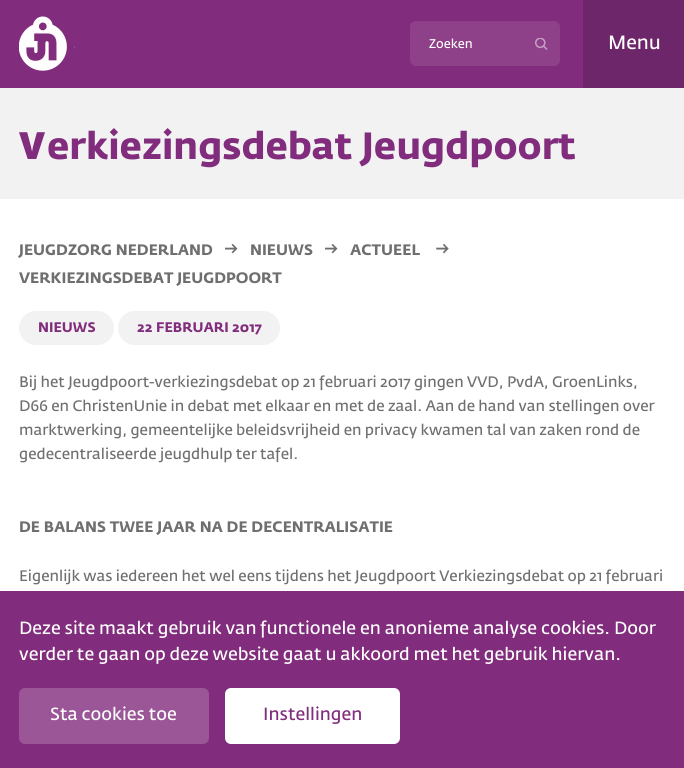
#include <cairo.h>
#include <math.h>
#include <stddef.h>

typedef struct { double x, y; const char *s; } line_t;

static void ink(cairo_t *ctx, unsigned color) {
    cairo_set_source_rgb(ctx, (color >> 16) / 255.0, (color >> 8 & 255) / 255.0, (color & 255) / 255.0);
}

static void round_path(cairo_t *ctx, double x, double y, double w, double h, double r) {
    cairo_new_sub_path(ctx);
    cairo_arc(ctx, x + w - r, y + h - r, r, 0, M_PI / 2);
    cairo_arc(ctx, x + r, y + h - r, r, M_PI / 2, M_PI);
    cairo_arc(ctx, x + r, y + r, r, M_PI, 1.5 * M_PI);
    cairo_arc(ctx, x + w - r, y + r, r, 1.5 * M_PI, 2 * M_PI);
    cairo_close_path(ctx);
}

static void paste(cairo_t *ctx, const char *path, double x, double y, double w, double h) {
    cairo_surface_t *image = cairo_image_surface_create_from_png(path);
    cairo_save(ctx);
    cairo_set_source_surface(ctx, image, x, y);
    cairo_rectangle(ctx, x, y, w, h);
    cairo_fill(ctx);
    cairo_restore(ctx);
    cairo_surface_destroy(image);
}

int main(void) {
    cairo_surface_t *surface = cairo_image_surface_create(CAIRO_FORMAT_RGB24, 684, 768);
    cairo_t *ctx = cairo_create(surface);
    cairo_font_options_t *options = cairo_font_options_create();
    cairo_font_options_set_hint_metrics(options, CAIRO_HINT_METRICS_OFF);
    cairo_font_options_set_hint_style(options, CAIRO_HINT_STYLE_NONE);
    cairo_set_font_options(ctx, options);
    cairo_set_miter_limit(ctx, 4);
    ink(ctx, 0xFFFFFF);
    cairo_paint(ctx);
    ink(ctx, 0x812C7C);
    cairo_rectangle(ctx, 0, 0, 583, 88);
    cairo_fill(ctx);
    paste(ctx, "media/1.png", 19, 16, 56, 55);
    ink(ctx, 0x8E4189);
    round_path(ctx, 410, 21, 150, 45, 6);
    cairo_fill(ctx);
    cairo_select_font_face(ctx, "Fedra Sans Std", CAIRO_FONT_SLANT_NORMAL, CAIRO_FONT_WEIGHT_NORMAL);
    cairo_set_font_size(ctx, 12.5);
    ink(ctx, 0xFFFFFF);
    cairo_move_to(ctx, 429, 48);
    cairo_show_text(ctx, "Zoeken");
    paste(ctx, "media/2.png", 535, 38, 13, 12);
    ink(ctx, 0x6E266A);
    cairo_rectangle(ctx, 583, 0, 101, 88);
    cairo_fill(ctx);
    cairo_set_font_size(ctx, 19);
    ink(ctx, 0xFFFFFF);
    cairo_move_to(ctx, 608, 49);
    cairo_show_text(ctx, "Menu");
    ink(ctx, 0xF2F2F2);
    cairo_rectangle(ctx, 0, 88, 684, 111);
    cairo_fill(ctx);
    cairo_select_font_face(ctx, "Noto Sans Black", CAIRO_FONT_SLANT_NORMAL, CAIRO_FONT_WEIGHT_NORMAL);
    cairo_set_font_size(ctx, 37.5);
    ink(ctx, 0x812C7C);
    cairo_move_to(ctx, 19, 159);
    cairo_show_text(ctx, "V");
    cairo_select_font_face(ctx, "Fedra Sans Std", CAIRO_FONT_SLANT_NORMAL, CAIRO_FONT_WEIGHT_BOLD);
    cairo_move_to(ctx, 47, 159);
    cairo_show_text(ctx, "erkiezingsdebat Jeugdpoort");
    cairo_set_font_size(ctx, 15);
    ink(ctx, 0x706F6F);
    cairo_move_to(ctx, 19, 255);
    cairo_show_text(ctx, "JEUGDZORG NEDERLAND");
    paste(ctx, "media/3.png", 225, 244, 13, 10);
    cairo_move_to(ctx, 250, 255);
    cairo_show_text(ctx, "NIEUWS");
    paste(ctx, "media/3.png", 325, 244, 13, 10);
    cairo_move_to(ctx, 350, 255);
    cairo_show_text(ctx, "ACTUEEL");
    paste(ctx, "media/4.png", 436, 244, 13, 10);
    cairo_move_to(ctx, 19, 283);
    cairo_show_text(ctx, "VERKIEZINGSDEBAT JEUGDPOORT");
    ink(ctx, 0xF2F2F2);
    round_path(ctx, 19, 311, 95, 34, 17);
    cairo_fill(ctx);
    cairo_set_font_size(ctx, 13.75);
    ink(ctx, 0x812C7C);
    cairo_move_to(ctx, 38, 332);
    cairo_show_text(ctx, "NIEUWS");
    ink(ctx, 0xF2F2F2);
    round_path(ctx, 118, 311, 162, 34, 17);
    cairo_fill(ctx);
    ink(ctx, 0x812C7C);
    cairo_move_to(ctx, 137, 332);
    cairo_show_text(ctx, "22 FEBRUARI 2017");
    cairo_select_font_face(ctx, "Fedra Sans Std", CAIRO_FONT_SLANT_NORMAL, CAIRO_FONT_WEIGHT_NORMAL);
    cairo_set_font_size(ctx, 15);
    ink(ctx, 0x706F6F);
    {
        static const line_t items[] = {
            {19, 387, "Bij het Jeugdpoort-verkiezingsdebat op 21 februari 2017 gingen VVD, PvdA, GroenLinks,"},
            {19, 411, "D66 en ChristenUnie in debat met elkaar en met de zaal. Aan de hand van stellingen over"},
            {19, 435, "marktwerking, gemeentelijke beleidsvrijheid en privacy kwamen tal van zaken rond de"},
            {19, 459, "gedecentraliseerde jeugdhulp ter tafel."},
        };
        for (size_t i = 0; i < sizeof items / sizeof *items; i++) {
            cairo_move_to(ctx, items[i].x, items[i].y);
            cairo_show_text(ctx, items[i].s);
        }
    }
    cairo_select_font_face(ctx, "Fedra Sans Std", CAIRO_FONT_SLANT_NORMAL, CAIRO_FONT_WEIGHT_BOLD);
    cairo_move_to(ctx, 19, 532);
    cairo_show_text(ctx, "DE BALANS TWEE JAAR NA DE DECENTRALISATIE");
    cairo_select_font_face(ctx, "Fedra Sans Std", CAIRO_FONT_SLANT_NORMAL, CAIRO_FONT_WEIGHT_NORMAL);
    cairo_move_to(ctx, 19, 581);
    cairo_show_text(ctx, "Eigenlijk was iedereen het wel eens tijdens het Jeugdpoort Verkiezingsdebat op 21 februari");
    ink(ctx, 0x812C7C);
    cairo_rectangle(ctx, 0, 591, 684, 177);
    cairo_fill(ctx);
    cairo_set_font_size(ctx, 17.5);
    ink(ctx, 0xFFFFFF);
    cairo_move_to(ctx, 19, 634);
    cairo_show_text(ctx, "Deze site maakt gebruik van functionele en anonieme analyse cookies. Door");
    cairo_move_to(ctx, 19, 660);
    cairo_show_text(ctx, "verder te gaan op deze website gaat u akkoord met het gebruik hiervan.");
    ink(ctx, 0x9A5696);
    round_path(ctx, 19, 688, 190, 56, 6);
    cairo_fill(ctx);
    ink(ctx, 0xFFFFFF);
    cairo_move_to(ctx, 50, 720);
    cairo_show_text(ctx, "Sta cookies toe");
    round_path(ctx, 225, 688, 175, 56, 6);
    cairo_fill(ctx);
    ink(ctx, 0x812C7C);
    cairo_move_to(ctx, 263, 720);
    cairo_show_text(ctx, "Instellingen");
    cairo_surface_write_to_png(surface, "image.png");
    cairo_font_options_destroy(options);
    cairo_destroy(ctx);
    cairo_surface_destroy(surface);
    return 0;
}
